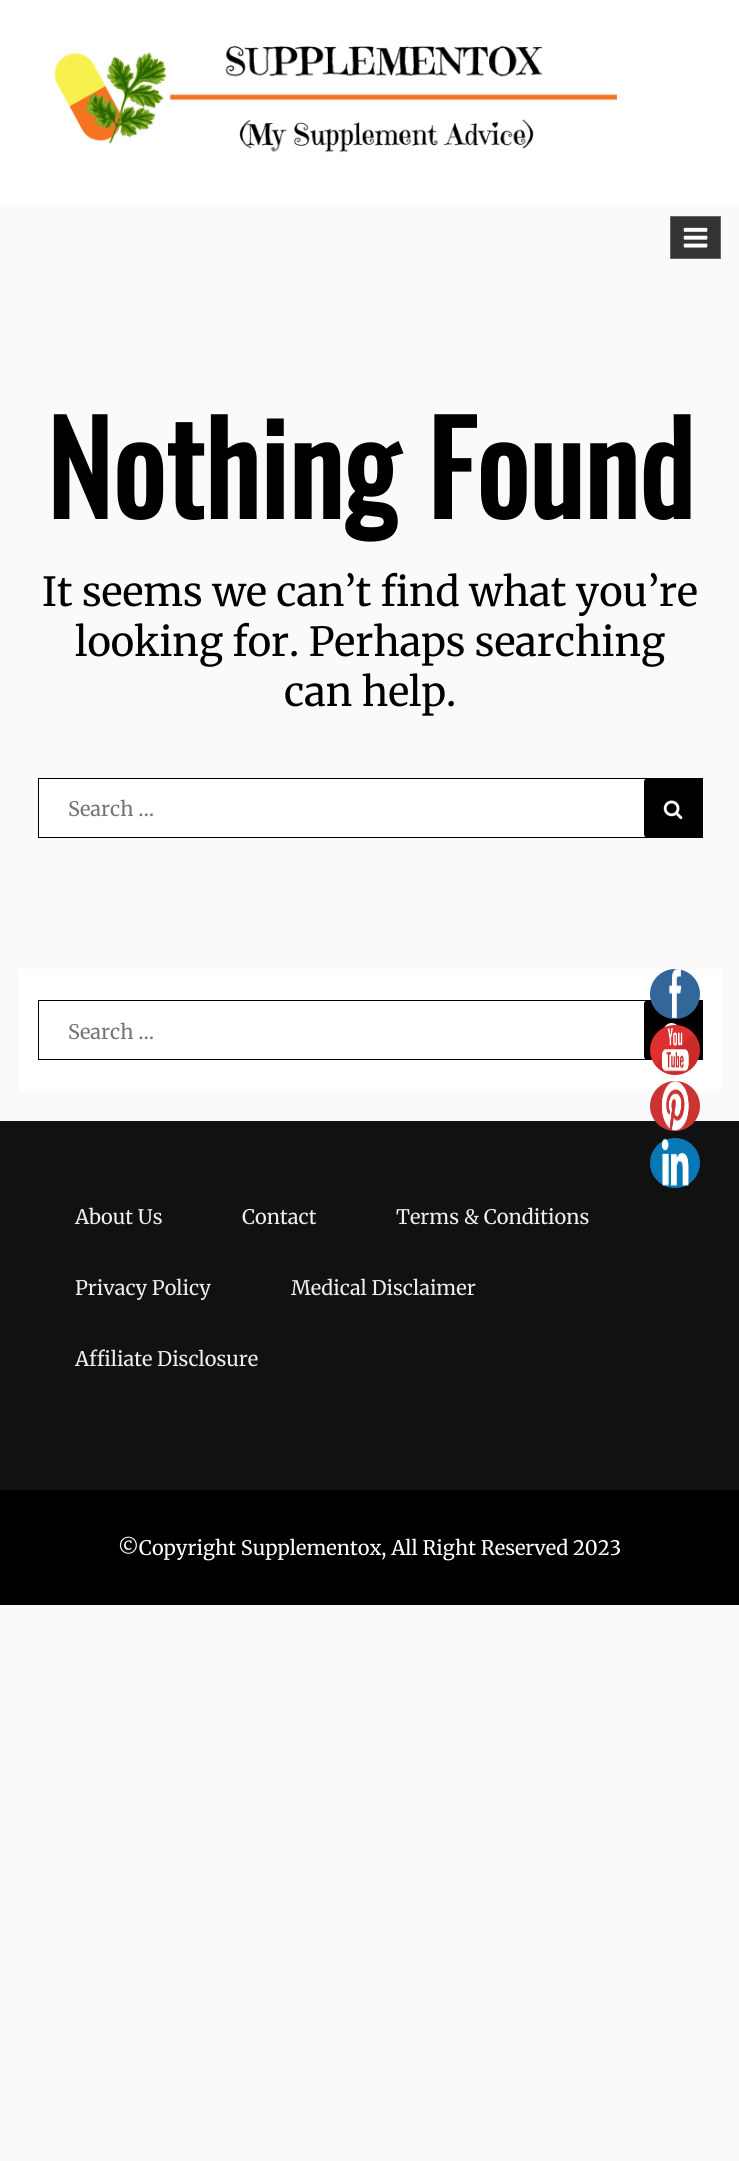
#include <cairo.h>
#include <math.h>
#include <stddef.h>

typedef struct { double x, y; const char *s; } line_t;

static void ink(cairo_t *ctx, unsigned color) {
    cairo_set_source_rgb(ctx, (color >> 16) / 255.0, (color >> 8 & 255) / 255.0, (color & 255) / 255.0);
}

static void round_path(cairo_t *ctx, double x, double y, double w, double h, double r) {
    cairo_new_sub_path(ctx);
    cairo_arc(ctx, x + w - r, y + h - r, r, 0, M_PI / 2);
    cairo_arc(ctx, x + r, y + h - r, r, M_PI / 2, M_PI);
    cairo_arc(ctx, x + r, y + r, r, M_PI, 1.5 * M_PI);
    cairo_arc(ctx, x + w - r, y + r, r, 1.5 * M_PI, 2 * M_PI);
    cairo_close_path(ctx);
}

static void paste(cairo_t *ctx, const char *path, double x, double y, double w, double h) {
    cairo_surface_t *image = cairo_image_surface_create_from_png(path);
    cairo_save(ctx);
    cairo_set_source_surface(ctx, image, x, y);
    cairo_rectangle(ctx, x, y, w, h);
    cairo_fill(ctx);
    cairo_restore(ctx);
    cairo_surface_destroy(image);
}

int main(void) {
    cairo_surface_t *surface = cairo_image_surface_create(CAIRO_FORMAT_RGB24, 739, 2161);
    cairo_t *ctx = cairo_create(surface);
    cairo_font_options_t *options = cairo_font_options_create();
    cairo_font_options_set_hint_metrics(options, CAIRO_HINT_METRICS_OFF);
    cairo_font_options_set_hint_style(options, CAIRO_HINT_STYLE_NONE);
    cairo_set_font_options(ctx, options);
    cairo_set_miter_limit(ctx, 4);
    cairo_pattern_t *gradient;
    ink(ctx, 0xFAFAFA);
    cairo_paint(ctx);
    ink(ctx, 0xFFFFFF);
    cairo_rectangle(ctx, 0, 0, 739, 206);
    cairo_fill(ctx);
    paste(ctx, "media/1.png", 54, 46, 564, 107);
    ink(ctx, 0x333333);
    cairo_rectangle(ctx, 670.5, 216.5, 50, 42);
    cairo_fill_preserve(ctx);
    ink(ctx, 0x666666);
    cairo_set_line_width(ctx, 1);
    cairo_stroke(ctx);
    paste(ctx, "media/2.png", 683, 227, 25, 21);
    cairo_select_font_face(ctx, "Oswald", CAIRO_FONT_SLANT_NORMAL, CAIRO_FONT_WEIGHT_BOLD);
    cairo_set_font_size(ctx, 125);
    ink(ctx, 0x000000);
    cairo_move_to(ctx, 46, 519);
    cairo_show_text(ctx, "Nothing Found");
    cairo_select_font_face(ctx, "Merriweather Light", CAIRO_FONT_SLANT_NORMAL, CAIRO_FONT_WEIGHT_NORMAL);
    cairo_set_font_size(ctx, 40);
    {
        static const line_t items[] = {
            {42, 606, "It seems we can’t find what you’re"},
            {75, 656, "looking for. Perhaps searching"},
            {284, 706, "can help."},
        };
        for (size_t i = 0; i < sizeof items / sizeof *items; i++) {
            cairo_move_to(ctx, items[i].x, items[i].y);
            cairo_show_text(ctx, items[i].s);
        }
    }
    ink(ctx, 0xFFFFFF);
    cairo_rectangle(ctx, 38.5, 778.5, 664, 59);
    cairo_fill_preserve(ctx);
    ink(ctx, 0x000000);
    cairo_stroke(ctx);
    cairo_set_font_size(ctx, 20);
    ink(ctx, 0x757575);
    cairo_move_to(ctx, 68, 816);
    cairo_show_text(ctx, "Search …");
    ink(ctx, 0x000000);
    round_path(ctx, 644, 778, 59, 60, 4);
    cairo_fill(ctx);
    paste(ctx, "media/3.png", 663, 800, 20, 20);
    ink(ctx, 0xFFFFFF);
    cairo_rectangle(ctx, 19, 969, 702, 122);
    cairo_fill(ctx);
    cairo_rectangle(ctx, 38.5, 1000.5, 664, 59);
    ink(ctx, 0x000000);
    cairo_stroke(ctx);
    ink(ctx, 0x757575);
    cairo_move_to(ctx, 68, 1039);
    cairo_show_text(ctx, "Search …");
    ink(ctx, 0x000000);
    round_path(ctx, 644, 1000, 59, 60, 4);
    cairo_fill(ctx);
    paste(ctx, "media/4.png", 664, 1023, 14, 5);
    ink(ctx, 0x336699);
    cairo_arc(ctx, 675, 994, 25, 0, 2 * M_PI);
    cairo_fill(ctx);
    paste(ctx, "media/5.png", 669, 969, 13, 49);
    gradient = cairo_pattern_create_linear(653, 1023, 697, 1077);
    cairo_pattern_add_color_stop_rgba(gradient, 0.14, 0.878, 0.184, 0.184, 1);
    cairo_pattern_add_color_stop_rgba(gradient, 0.49, 0.878, 0.184, 0.184, 1);
    cairo_pattern_add_color_stop_rgba(gradient, 0.49, 0.788, 0.165, 0.165, 1);
    cairo_pattern_add_color_stop_rgba(gradient, 0.85, 0.788, 0.165, 0.165, 1);
    cairo_set_source(ctx, gradient);
    cairo_pattern_destroy(gradient);
    cairo_arc(ctx, 675, 1050, 25, 0, 2 * M_PI);
    cairo_fill(ctx);
    paste(ctx, "media/6.png", 662, 1027, 27, 45);
    ink(ctx, 0x111111);
    cairo_rectangle(ctx, 0, 1121, 739, 369);
    cairo_fill(ctx);
    ink(ctx, 0xCC3333);
    cairo_arc(ctx, 675, 1106, 25, 0, 2 * M_PI);
    cairo_fill(ctx);
    paste(ctx, "media/7.png", 662, 1081, 27, 50);
    ink(ctx, 0x0877B5);
    cairo_arc(ctx, 675, 1163, 25, 0, 2 * M_PI);
    cairo_fill(ctx);
    paste(ctx, "media/8.png", 662, 1138, 27, 48);
    ink(ctx, 0x000000);
    cairo_rectangle(ctx, 0, 1490, 739, 115);
    cairo_fill(ctx);
    ink(ctx, 0xEEEEEE);
    {
        static const line_t items[] = {
            {75, 1224, "About Us"},
            {242, 1224, "Contact"},
            {396, 1224, "Terms & Conditions"},
            {75, 1295, "Privacy Policy"},
            {291, 1295, "Medical Disclaimer"},
            {75, 1366, "Affiliate Disclosure"},
        };
        for (size_t i = 0; i < sizeof items / sizeof *items; i++) {
            cairo_move_to(ctx, items[i].x, items[i].y);
            cairo_show_text(ctx, items[i].s);
        }
    }
    ink(ctx, 0xFFFFFF);
    cairo_move_to(ctx, 118, 1555);
    cairo_show_text(ctx, "©Copyright Supplementox, All Right Reserved 2023");
    cairo_surface_write_to_png(surface, "image.png");
    cairo_font_options_destroy(options);
    cairo_destroy(ctx);
    cairo_surface_destroy(surface);
    return 0;
}
